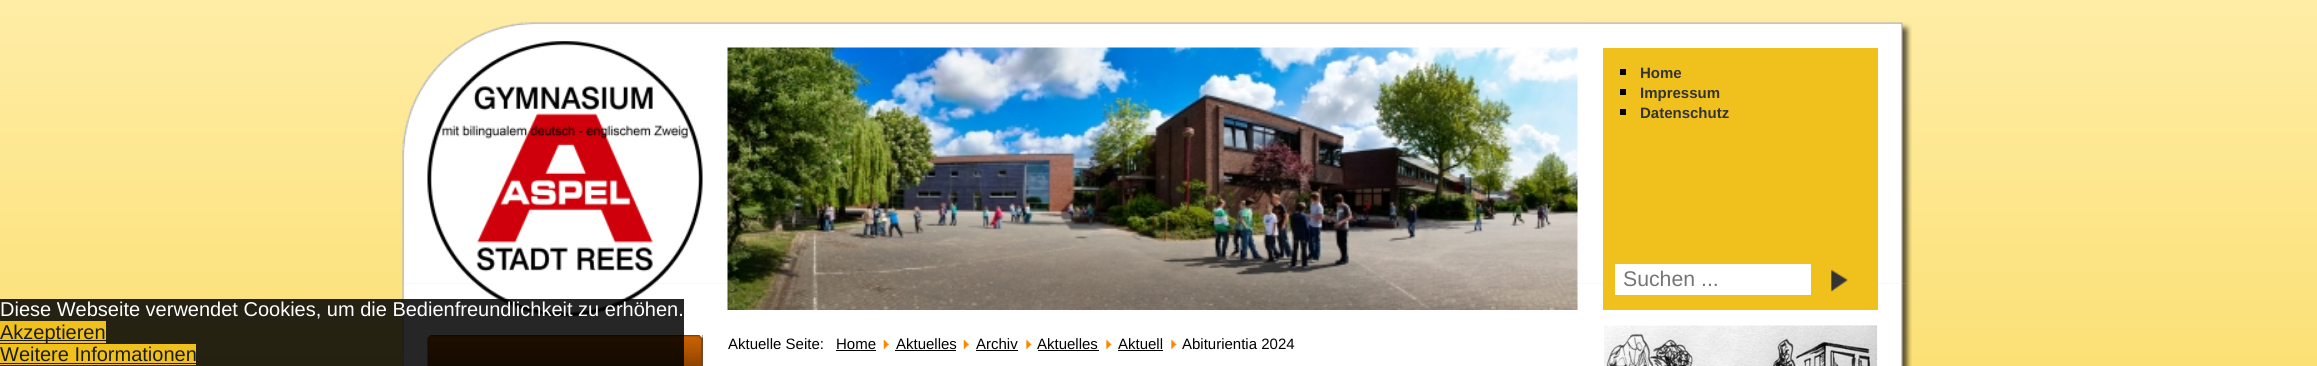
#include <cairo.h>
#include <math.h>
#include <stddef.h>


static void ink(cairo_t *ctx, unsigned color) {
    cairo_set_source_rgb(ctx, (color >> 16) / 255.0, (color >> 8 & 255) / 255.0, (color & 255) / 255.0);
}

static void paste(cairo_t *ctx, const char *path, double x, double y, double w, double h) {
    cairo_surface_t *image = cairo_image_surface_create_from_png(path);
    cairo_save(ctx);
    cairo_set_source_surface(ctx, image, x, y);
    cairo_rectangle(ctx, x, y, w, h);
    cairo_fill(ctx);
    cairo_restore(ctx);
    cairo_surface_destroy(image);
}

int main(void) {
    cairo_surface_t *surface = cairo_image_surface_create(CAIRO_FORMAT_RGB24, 2317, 366);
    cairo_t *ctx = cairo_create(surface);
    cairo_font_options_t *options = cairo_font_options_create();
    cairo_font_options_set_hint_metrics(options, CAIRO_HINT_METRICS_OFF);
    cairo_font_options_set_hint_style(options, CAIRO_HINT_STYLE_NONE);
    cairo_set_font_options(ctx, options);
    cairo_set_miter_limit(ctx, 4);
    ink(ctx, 0xFFFFFF);
    cairo_paint(ctx);
    paste(ctx, "media/1.png", 0, 0, 2317, 366);
    paste(ctx, "media/6.png", 402, 283, 1510, 83);
    paste(ctx, "media/2.png", 402, 22, 1510, 262);
    paste(ctx, "media/3.png", 427, 41, 276, 276);
    paste(ctx, "media/4.png", 727, 47, 851, 263);
    ink(ctx, 0xF0C11D);
    cairo_rectangle(ctx, 1603, 48, 275, 262);
    cairo_fill(ctx);
    ink(ctx, 0x000000);
    cairo_rectangle(ctx, 1620, 69, 6, 6);
    cairo_fill(ctx);
    cairo_select_font_face(ctx, "Liberation Sans", CAIRO_FONT_SLANT_NORMAL, CAIRO_FONT_WEIGHT_BOLD);
    cairo_set_font_size(ctx, 15);
    ink(ctx, 0x333333);
    cairo_move_to(ctx, 1640, 78);
    cairo_show_text(ctx, "Home");
    ink(ctx, 0x000000);
    cairo_rectangle(ctx, 1620, 89, 6, 6);
    cairo_fill(ctx);
    ink(ctx, 0x333333);
    cairo_move_to(ctx, 1640, 98);
    cairo_show_text(ctx, "Impressum");
    ink(ctx, 0x000000);
    cairo_rectangle(ctx, 1620, 109, 6, 6);
    cairo_fill(ctx);
    ink(ctx, 0x333333);
    cairo_move_to(ctx, 1640, 118);
    cairo_show_text(ctx, "Datenschutz");
    ink(ctx, 0xFFFFFF);
    cairo_rectangle(ctx, 1615, 264, 196, 31);
    cairo_fill(ctx);
    cairo_select_font_face(ctx, "Liberation Sans", CAIRO_FONT_SLANT_NORMAL, CAIRO_FONT_WEIGHT_NORMAL);
    cairo_set_font_size(ctx, 21.25);
    ink(ctx, 0x757575);
    cairo_move_to(ctx, 1623, 286);
    cairo_show_text(ctx, "Suchen ...");
    paste(ctx, "media/5.png", 1831, 269, 17, 23);
    ink(ctx, 0x545454);
    cairo_rectangle(ctx, 702, 335, 1, 31);
    cairo_fill(ctx);
    paste(ctx, "media/7.png", 427, 335, 276, 31);
    cairo_set_source_rgba(ctx, 0, 0, 0, 0.85);
    cairo_rectangle(ctx, 0, 299, 684, 67);
    cairo_fill(ctx);
    cairo_set_font_size(ctx, 20);
    ink(ctx, 0xFFFFFF);
    cairo_move_to(ctx, 0, 316);
    cairo_show_text(ctx, "Diese Webseite verwendet Cookies, um die Bedienfreundlichkeit zu erhöhen.");
    ink(ctx, 0xF0C11D);
    cairo_rectangle(ctx, 0, 321, 106, 22);
    cairo_fill(ctx);
    ink(ctx, 0x1B1D1D);
    cairo_rectangle(ctx, 0, 340, 106, 1);
    cairo_fill(ctx);
    cairo_move_to(ctx, 0, 339);
    cairo_show_text(ctx, "Akzeptieren");
    ink(ctx, 0xF0C11D);
    cairo_rectangle(ctx, 0, 344, 196, 21);
    cairo_fill(ctx);
    ink(ctx, 0x1B1D1D);
    cairo_move_to(ctx, 0, 361);
    cairo_show_text(ctx, "Weitere Informationen");
    cairo_rectangle(ctx, 0, 363, 196, 1);
    cairo_fill(ctx);
    cairo_set_font_size(ctx, 15);
    ink(ctx, 0x000000);
    cairo_move_to(ctx, 728, 349);
    cairo_show_text(ctx, "Aktuelle Seite:");
    cairo_move_to(ctx, 836, 349);
    cairo_show_text(ctx, "Home");
    cairo_rectangle(ctx, 836, 350, 40, 1);
    cairo_fill(ctx);
    paste(ctx, "media/8.png", 883, 339, 6, 10);
    cairo_move_to(ctx, 896, 349);
    cairo_show_text(ctx, "Aktuelles");
    cairo_rectangle(ctx, 895, 350, 61, 1);
    cairo_fill(ctx);
    paste(ctx, "media/9.png", 963, 339, 6, 10);
    cairo_move_to(ctx, 976, 349);
    cairo_show_text(ctx, "Archiv");
    cairo_rectangle(ctx, 976, 350, 42, 1);
    cairo_fill(ctx);
    paste(ctx, "media/10.png", 1026, 339, 6, 10);
    cairo_move_to(ctx, 1037, 349);
    cairo_show_text(ctx, "Aktuelles");
    cairo_rectangle(ctx, 1038, 350, 61, 1);
    cairo_fill(ctx);
    paste(ctx, "media/10.png", 1106, 339, 6, 10);
    cairo_move_to(ctx, 1118, 349);
    cairo_show_text(ctx, "Aktuell");
    cairo_rectangle(ctx, 1118, 350, 45, 1);
    cairo_fill(ctx);
    paste(ctx, "media/10.png", 1171, 339, 6, 10);
    cairo_move_to(ctx, 1182, 349);
    cairo_show_text(ctx, "Abiturientia 2024");
    paste(ctx, "media/11.png", 1604, 325, 274, 41);
    cairo_surface_write_to_png(surface, "image.png");
    cairo_font_options_destroy(options);
    cairo_destroy(ctx);
    cairo_surface_destroy(surface);
    return 0;
}
